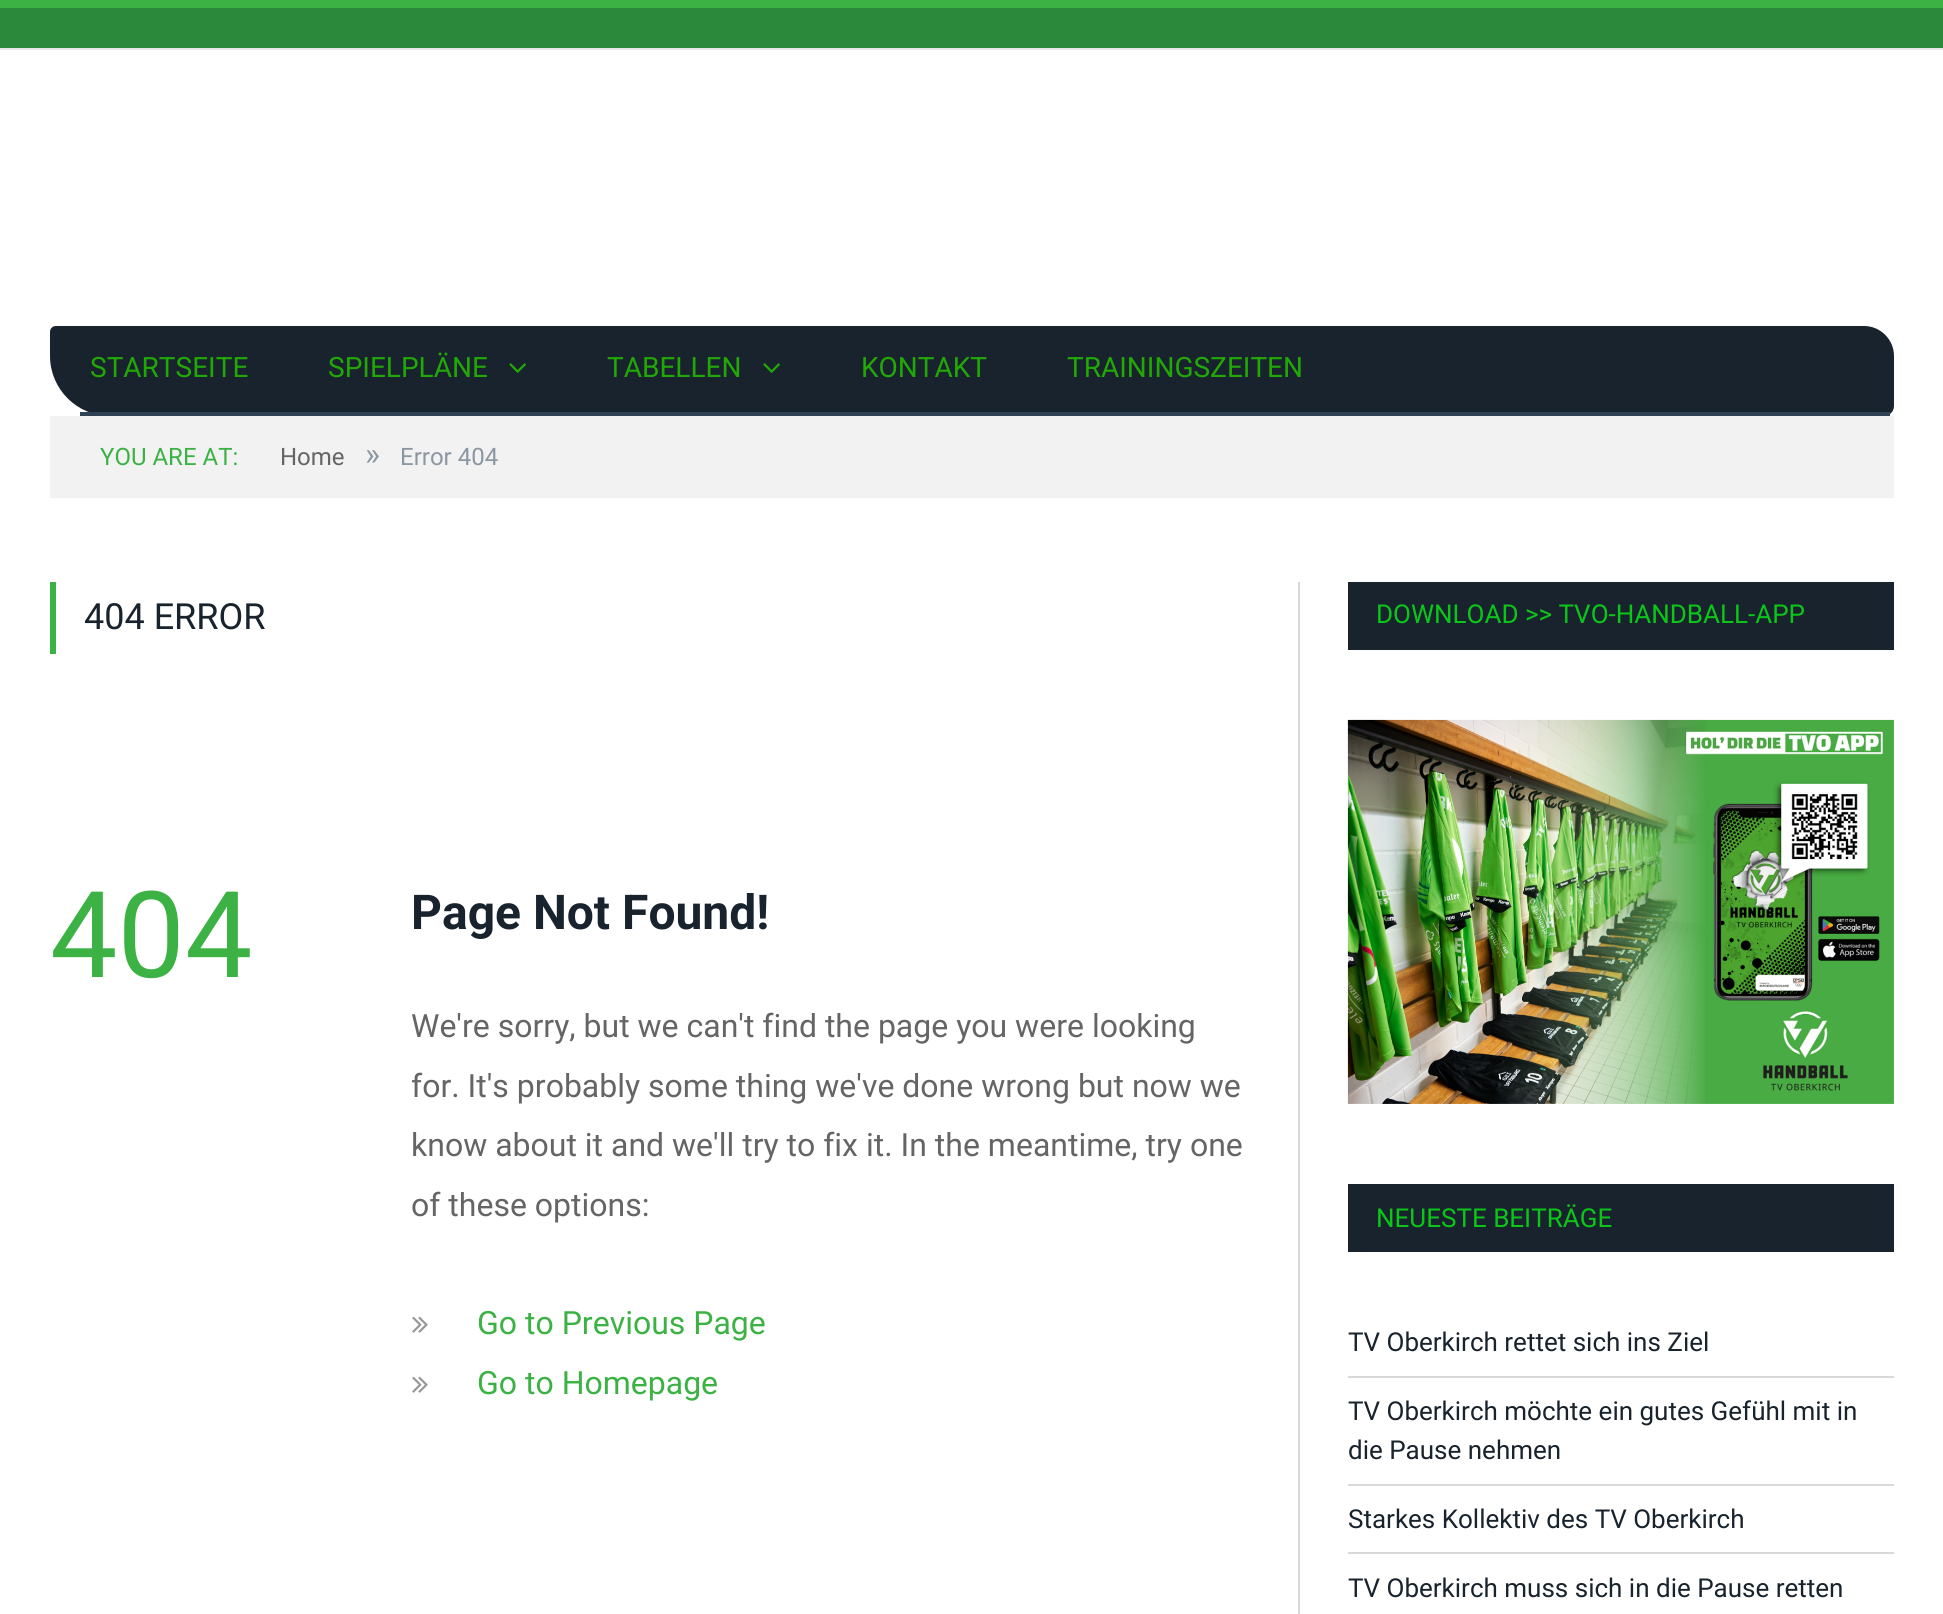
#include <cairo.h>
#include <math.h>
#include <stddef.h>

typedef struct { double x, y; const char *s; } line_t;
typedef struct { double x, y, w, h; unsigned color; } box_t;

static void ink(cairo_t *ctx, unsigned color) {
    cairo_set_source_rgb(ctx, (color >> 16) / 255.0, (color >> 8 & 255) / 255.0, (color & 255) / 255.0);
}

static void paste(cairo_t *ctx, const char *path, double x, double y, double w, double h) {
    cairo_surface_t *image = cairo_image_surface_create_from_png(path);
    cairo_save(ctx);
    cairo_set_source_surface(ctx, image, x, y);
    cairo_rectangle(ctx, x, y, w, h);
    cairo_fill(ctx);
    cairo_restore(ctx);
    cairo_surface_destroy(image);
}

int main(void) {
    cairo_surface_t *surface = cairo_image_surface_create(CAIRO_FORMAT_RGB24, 1943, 1614);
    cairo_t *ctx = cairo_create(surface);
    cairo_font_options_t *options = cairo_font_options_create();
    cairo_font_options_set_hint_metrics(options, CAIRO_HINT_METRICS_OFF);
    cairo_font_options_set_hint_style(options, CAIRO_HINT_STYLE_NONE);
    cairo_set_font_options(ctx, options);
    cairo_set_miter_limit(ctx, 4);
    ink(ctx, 0xFFFFFF);
    cairo_paint(ctx);
    {
        static const box_t items[] = {
            {0, 8, 1943, 40, 0x2A893A},
            {0, 0, 1943, 8, 0x3CB244},
            {0, 48, 1943, 2, 0xE7E7E7},
        };
        for (size_t i = 0; i < sizeof items / sizeof *items; i++) {
            ink(ctx, items[i].color);
            cairo_rectangle(ctx, items[i].x, items[i].y, items[i].w, items[i].h);
            cairo_fill(ctx);
        }
    }
    ink(ctx, 0x19232D);
    cairo_new_path(ctx);
    cairo_move_to(ctx, 56, 326);
    cairo_line_to(ctx, 1864, 326);
    cairo_curve_to(ctx, 1880.5, 326, 1894, 339.5, 1894, 356);
    cairo_line_to(ctx, 1894, 406);
    cairo_curve_to(ctx, 1894, 411.5, 1889.5, 416, 1884, 416);
    cairo_line_to(ctx, 110, 416);
    cairo_curve_to(ctx, 77, 416, 50, 389, 50, 356);
    cairo_line_to(ctx, 50, 332);
    cairo_curve_to(ctx, 50, 328.5, 52.5, 326, 56, 326);
    cairo_close_path(ctx);
    cairo_fill(ctx);
    ink(ctx, 0x2F4154);
    cairo_rectangle(ctx, 80, 412, 1810, 4);
    cairo_fill(ctx);
    cairo_select_font_face(ctx, "Roboto", CAIRO_FONT_SLANT_NORMAL, CAIRO_FONT_WEIGHT_NORMAL);
    cairo_set_font_size(ctx, 28);
    ink(ctx, 0x21A806);
    cairo_move_to(ctx, 90, 377);
    cairo_show_text(ctx, "STARTSEITE");
    cairo_move_to(ctx, 328, 377);
    cairo_show_text(ctx, "SPIELPLÄNE");
    paste(ctx, "media/1.png", 509, 363, 17, 10);
    cairo_move_to(ctx, 607, 377);
    cairo_show_text(ctx, "TABELLEN");
    paste(ctx, "media/1.png", 763, 363, 17, 10);
    cairo_move_to(ctx, 861, 377);
    cairo_show_text(ctx, "KONTAKT");
    cairo_move_to(ctx, 1067, 377);
    cairo_show_text(ctx, "TRAININGSZEITEN");
    ink(ctx, 0xF2F2F2);
    cairo_rectangle(ctx, 50, 416, 1844, 82);
    cairo_fill(ctx);
    cairo_set_font_size(ctx, 24);
    ink(ctx, 0x3CB244);
    cairo_move_to(ctx, 100, 465);
    cairo_show_text(ctx, "YOU ARE AT:");
    ink(ctx, 0x656565);
    cairo_move_to(ctx, 280, 465);
    cairo_show_text(ctx, "Home");
    cairo_set_font_size(ctx, 32);
    ink(ctx, 0x8D97A1);
    cairo_move_to(ctx, 365, 465);
    cairo_show_text(ctx, "»");
    cairo_set_font_size(ctx, 24);
    cairo_move_to(ctx, 400, 465);
    cairo_show_text(ctx, "Error 404");
    ink(ctx, 0x3CB244);
    cairo_rectangle(ctx, 50, 582, 6, 72);
    cairo_fill(ctx);
    cairo_set_font_size(ctx, 36);
    ink(ctx, 0x19232D);
    cairo_move_to(ctx, 84, 629);
    cairo_show_text(ctx, "404 ERROR");
    cairo_set_font_size(ctx, 120);
    ink(ctx, 0x3CB244);
    cairo_move_to(ctx, 50, 977);
    cairo_show_text(ctx, "404");
    cairo_select_font_face(ctx, "Roboto", CAIRO_FONT_SLANT_NORMAL, CAIRO_FONT_WEIGHT_BOLD);
    cairo_set_font_size(ctx, 48);
    ink(ctx, 0x19232D);
    cairo_move_to(ctx, 411, 929);
    cairo_show_text(ctx, "Page Not Found!");
    cairo_select_font_face(ctx, "Roboto", CAIRO_FONT_SLANT_NORMAL, CAIRO_FONT_WEIGHT_NORMAL);
    cairo_set_font_size(ctx, 32);
    ink(ctx, 0x656565);
    {
        static const line_t items[] = {
            {411, 1037, "We're sorry, but we can't find the page you were looking"},
            {411, 1097, "for. It's probably some thing we've done wrong but now we"},
            {411, 1156, "know about it and we'll try to fix it. In the meantime, try one"},
            {411, 1216, "of these options:"},
        };
        for (size_t i = 0; i < sizeof items / sizeof *items; i++) {
            cairo_move_to(ctx, items[i].x, items[i].y);
            cairo_show_text(ctx, items[i].s);
        }
    }
    paste(ctx, "media/2.png", 412, 1316, 16, 17);
    ink(ctx, 0x3CB244);
    cairo_move_to(ctx, 477, 1334);
    cairo_show_text(ctx, "Go to Previous Page");
    paste(ctx, "media/2.png", 412, 1376, 16, 17);
    cairo_move_to(ctx, 477, 1394);
    cairo_show_text(ctx, "Go to Homepage");
    ink(ctx, 0xD9D9D9);
    cairo_rectangle(ctx, 1298, 582, 2, 1032);
    cairo_fill(ctx);
    ink(ctx, 0x19232D);
    cairo_rectangle(ctx, 1348, 582, 546, 68);
    cairo_fill(ctx);
    cairo_set_font_size(ctx, 26);
    ink(ctx, 0x0BC618);
    cairo_move_to(ctx, 1376, 623);
    cairo_show_text(ctx, "DOWNLOAD >> TVO-HANDBALL-APP");
    paste(ctx, "media/3.png", 1347, 719, 547, 385);
    ink(ctx, 0x19232D);
    cairo_rectangle(ctx, 1348, 1184, 546, 68);
    cairo_fill(ctx);
    ink(ctx, 0x0BC618);
    cairo_move_to(ctx, 1376, 1227);
    cairo_show_text(ctx, "NEUESTE BEITRÄGE");
    ink(ctx, 0xD9D9D9);
    cairo_rectangle(ctx, 1348, 1376, 546, 2);
    cairo_fill(ctx);
    ink(ctx, 0x19232D);
    cairo_move_to(ctx, 1348, 1351);
    cairo_show_text(ctx, "TV Oberkirch rettet sich ins Ziel");
    ink(ctx, 0xD9D9D9);
    cairo_rectangle(ctx, 1348, 1484, 546, 2);
    cairo_fill(ctx);
    ink(ctx, 0x19232D);
    cairo_move_to(ctx, 1348, 1420);
    cairo_show_text(ctx, "TV Oberkirch möchte ein gutes Gefühl mit in");
    cairo_move_to(ctx, 1348, 1459);
    cairo_show_text(ctx, "die Pause nehmen");
    ink(ctx, 0xD9D9D9);
    cairo_rectangle(ctx, 1348, 1552, 546, 2);
    cairo_fill(ctx);
    ink(ctx, 0x19232D);
    cairo_move_to(ctx, 1348, 1528);
    cairo_show_text(ctx, "Starkes Kollektiv des TV Oberkirch");
    cairo_move_to(ctx, 1348, 1597);
    cairo_show_text(ctx, "TV Oberkirch muss sich in die Pause retten");
    cairo_surface_write_to_png(surface, "image.png");
    cairo_font_options_destroy(options);
    cairo_destroy(ctx);
    cairo_surface_destroy(surface);
    return 0;
}
